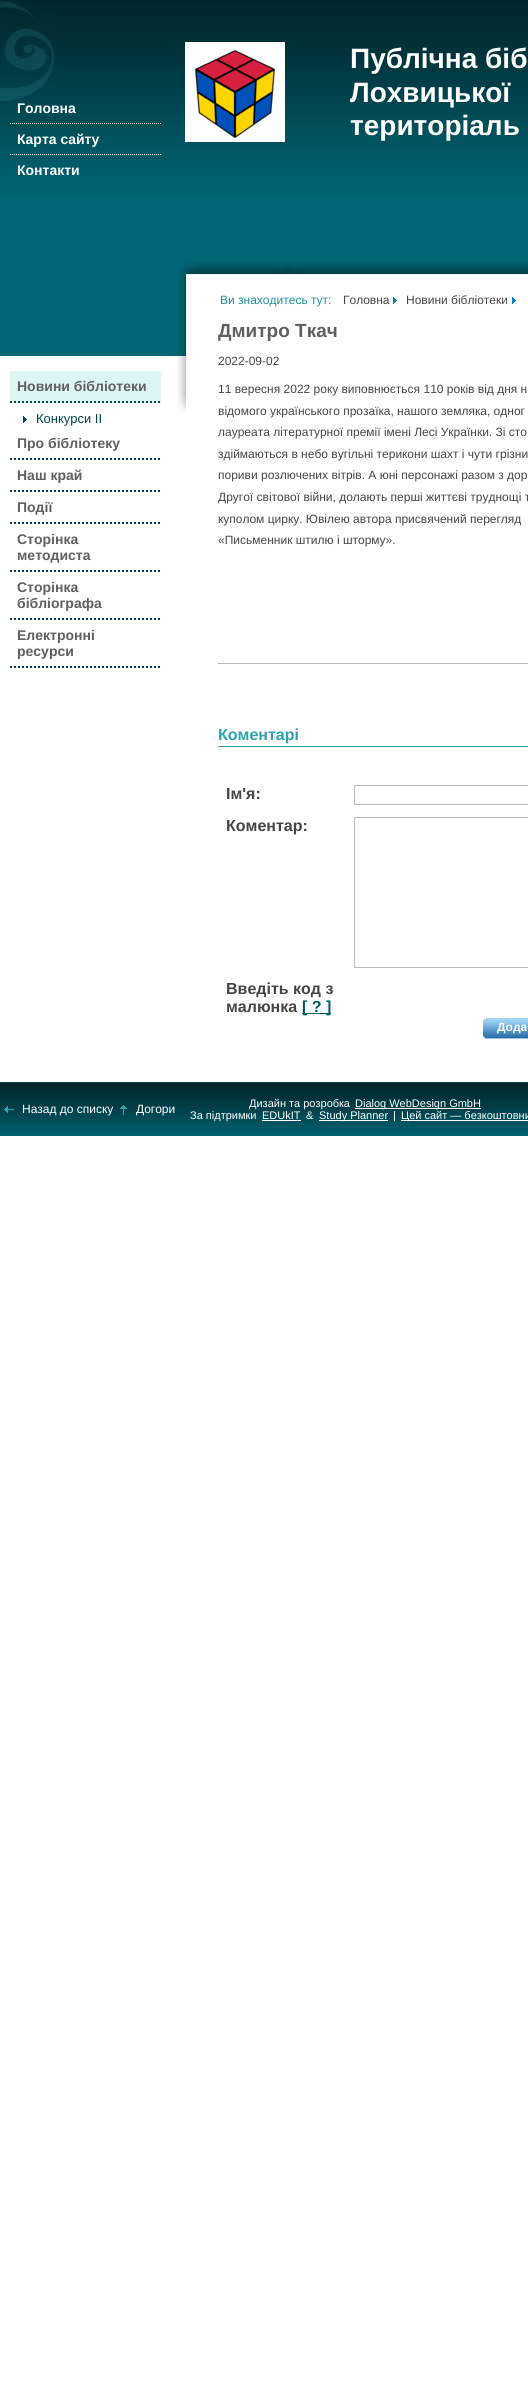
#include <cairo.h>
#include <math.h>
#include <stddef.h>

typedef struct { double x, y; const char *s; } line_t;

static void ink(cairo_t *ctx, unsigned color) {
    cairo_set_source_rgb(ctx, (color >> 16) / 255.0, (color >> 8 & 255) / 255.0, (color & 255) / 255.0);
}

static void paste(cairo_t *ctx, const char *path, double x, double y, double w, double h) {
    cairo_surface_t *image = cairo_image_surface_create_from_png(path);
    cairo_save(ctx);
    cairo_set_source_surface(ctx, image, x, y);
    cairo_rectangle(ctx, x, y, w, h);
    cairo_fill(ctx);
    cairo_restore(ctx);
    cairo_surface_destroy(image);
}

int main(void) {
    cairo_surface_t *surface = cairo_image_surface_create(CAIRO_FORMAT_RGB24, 528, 2402);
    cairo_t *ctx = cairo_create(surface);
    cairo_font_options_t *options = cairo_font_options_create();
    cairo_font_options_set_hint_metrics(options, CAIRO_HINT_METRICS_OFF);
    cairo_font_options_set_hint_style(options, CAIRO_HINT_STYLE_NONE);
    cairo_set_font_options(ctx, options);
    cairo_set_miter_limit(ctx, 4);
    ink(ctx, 0xFFFFFF);
    cairo_paint(ctx);
    ink(ctx, 0x006777);
    cairo_rectangle(ctx, 0, 195, 528, 161);
    cairo_fill(ctx);
    paste(ctx, "media/1.png", 0, 0, 528, 195);
    paste(ctx, "media/2.png", 0, 0, 56, 101);
    cairo_select_font_face(ctx, "Liberation Sans", CAIRO_FONT_SLANT_NORMAL, CAIRO_FONT_WEIGHT_BOLD);
    cairo_set_font_size(ctx, 14);
    ink(ctx, 0xFFFFFF);
    cairo_move_to(ctx, 17, 113);
    cairo_show_text(ctx, "Головна");
    cairo_new_path(ctx);
    cairo_move_to(ctx, 10, 123.5);
    cairo_line_to(ctx, 161, 123.5);
    cairo_set_line_width(ctx, 1);
    cairo_set_dash(ctx, (double[]){1, 1}, 2, 0);
    cairo_stroke(ctx);
    cairo_move_to(ctx, 17, 144);
    cairo_show_text(ctx, "Карта сайту");
    cairo_new_path(ctx);
    cairo_move_to(ctx, 10, 154.5);
    cairo_line_to(ctx, 161, 154.5);
    cairo_stroke(ctx);
    cairo_move_to(ctx, 17, 175);
    cairo_show_text(ctx, "Контакти");
    paste(ctx, "media/3.png", 185, 42, 100, 100);
    cairo_set_font_size(ctx, 28);
    {
        static const line_t items[] = {
            {350, 68, "Публічна біб"},
            {350, 102, "Лохвицької"},
            {350, 135, "територіаль"},
        };
        for (size_t i = 0; i < sizeof items / sizeof *items; i++) {
            cairo_move_to(ctx, items[i].x, items[i].y);
            cairo_show_text(ctx, items[i].s);
        }
    }
    ink(ctx, 0xDEF5F8);
    cairo_rectangle(ctx, 10, 371, 151, 32);
    cairo_fill(ctx);
    cairo_new_path(ctx);
    cairo_move_to(ctx, 10, 402);
    cairo_line_to(ctx, 161, 402);
    ink(ctx, 0x004550);
    cairo_set_line_width(ctx, 2);
    cairo_set_dash(ctx, (double[]){2, 2}, 2, 0);
    cairo_stroke(ctx);
    cairo_set_font_size(ctx, 14);
    ink(ctx, 0x606060);
    cairo_move_to(ctx, 17, 391);
    cairo_show_text(ctx, "Новини бібліотеки");
    paste(ctx, "media/4.png", 23, 416, 4, 7);
    cairo_select_font_face(ctx, "Liberation Sans", CAIRO_FONT_SLANT_NORMAL, CAIRO_FONT_WEIGHT_NORMAL);
    cairo_set_font_size(ctx, 13);
    ink(ctx, 0x00454F);
    cairo_move_to(ctx, 36, 423);
    cairo_show_text(ctx, "Конкурси II");
    cairo_new_path(ctx);
    cairo_move_to(ctx, 10, 459);
    cairo_line_to(ctx, 161, 459);
    ink(ctx, 0x004550);
    cairo_stroke(ctx);
    cairo_select_font_face(ctx, "Liberation Sans", CAIRO_FONT_SLANT_NORMAL, CAIRO_FONT_WEIGHT_BOLD);
    cairo_set_font_size(ctx, 14);
    ink(ctx, 0x606060);
    cairo_move_to(ctx, 17, 448);
    cairo_show_text(ctx, "Про бібліотеку");
    cairo_new_path(ctx);
    cairo_move_to(ctx, 10, 491);
    cairo_line_to(ctx, 161, 491);
    ink(ctx, 0x004550);
    cairo_stroke(ctx);
    ink(ctx, 0x606060);
    cairo_move_to(ctx, 17, 480);
    cairo_show_text(ctx, "Наш край");
    cairo_new_path(ctx);
    cairo_move_to(ctx, 10, 523);
    cairo_line_to(ctx, 161, 523);
    ink(ctx, 0x004550);
    cairo_stroke(ctx);
    ink(ctx, 0x606060);
    cairo_move_to(ctx, 17, 512);
    cairo_show_text(ctx, "Події");
    cairo_new_path(ctx);
    cairo_move_to(ctx, 10, 571);
    cairo_line_to(ctx, 161, 571);
    ink(ctx, 0x004550);
    cairo_stroke(ctx);
    ink(ctx, 0x606060);
    cairo_move_to(ctx, 17, 544);
    cairo_show_text(ctx, "Сторінка");
    cairo_move_to(ctx, 17, 560);
    cairo_show_text(ctx, "методиста");
    cairo_new_path(ctx);
    cairo_move_to(ctx, 10, 619);
    cairo_line_to(ctx, 161, 619);
    ink(ctx, 0x004550);
    cairo_stroke(ctx);
    ink(ctx, 0x606060);
    cairo_move_to(ctx, 17, 592);
    cairo_show_text(ctx, "Сторінка");
    cairo_move_to(ctx, 17, 608);
    cairo_show_text(ctx, "бібліографа");
    cairo_new_path(ctx);
    cairo_move_to(ctx, 10, 667);
    cairo_line_to(ctx, 161, 667);
    ink(ctx, 0x004550);
    cairo_stroke(ctx);
    ink(ctx, 0x606060);
    cairo_move_to(ctx, 17, 640);
    cairo_show_text(ctx, "Електронні");
    cairo_move_to(ctx, 17, 656);
    cairo_show_text(ctx, "ресурси");
    paste(ctx, "media/5.png", 177, 260, 311, 153);
    paste(ctx, "media/6.png", 488, 261, 40, 95);
    cairo_select_font_face(ctx, "Liberation Sans", CAIRO_FONT_SLANT_NORMAL, CAIRO_FONT_WEIGHT_NORMAL);
    cairo_set_font_size(ctx, 12);
    ink(ctx, 0x1E939F);
    cairo_move_to(ctx, 220, 304);
    cairo_show_text(ctx, "Ви знаходитесь тут:");
    paste(ctx, "media/7.png", 393, 297, 4, 7);
    ink(ctx, 0x464645);
    cairo_move_to(ctx, 343, 304);
    cairo_show_text(ctx, "Головна");
    paste(ctx, "media/7.png", 512, 297, 4, 7);
    cairo_move_to(ctx, 406, 304);
    cairo_show_text(ctx, "Новини бібліотеки");
    cairo_select_font_face(ctx, "Liberation Sans", CAIRO_FONT_SLANT_NORMAL, CAIRO_FONT_WEIGHT_BOLD);
    cairo_set_font_size(ctx, 19);
    ink(ctx, 0x606060);
    cairo_move_to(ctx, 218, 337);
    cairo_show_text(ctx, "Дмитро Ткач");
    cairo_select_font_face(ctx, "Liberation Sans", CAIRO_FONT_SLANT_NORMAL, CAIRO_FONT_WEIGHT_NORMAL);
    cairo_set_font_size(ctx, 12);
    ink(ctx, 0x464645);
    {
        static const line_t items[] = {
            {218, 365, "2022-09-02"},
            {218, 393, "11 вересня 2022 року виповнюється 110 років від дня н"},
            {218, 415, "відомого українського прозаїка, нашого земляка, одног"},
            {218, 436, "лауреата літературної премії імені Лесі Українки. Зі сто"},
            {218, 458, "здіймаються в небо вугільні терикони шахт і чути грізни"},
            {218, 479, "пориви розлючених вітрів. А юні персонажі разом з дор"},
            {218, 501, "Другої світової війни, долають перші життєві труднощі т"},
            {218, 523, "куполом цирку. Ювілею автора присвячений перегляд"},
            {218, 544, "«Письменник штилю і шторму»."},
        };
        for (size_t i = 0; i < sizeof items / sizeof *items; i++) {
            cairo_move_to(ctx, items[i].x, items[i].y);
            cairo_show_text(ctx, items[i].s);
        }
    }
    ink(ctx, 0xBCBCBC);
    cairo_rectangle(ctx, 218, 663, 310, 1);
    cairo_fill(ctx);
    ink(ctx, 0x2DA4AF);
    cairo_rectangle(ctx, 218, 746, 310, 1);
    cairo_fill(ctx);
    cairo_select_font_face(ctx, "Liberation Sans", CAIRO_FONT_SLANT_NORMAL, CAIRO_FONT_WEIGHT_BOLD);
    cairo_set_font_size(ctx, 16);
    cairo_move_to(ctx, 218, 740);
    cairo_show_text(ctx, "Коментарi");
    ink(ctx, 0x464645);
    cairo_move_to(ctx, 226, 799);
    cairo_show_text(ctx, "Ім'я:");
    cairo_rectangle(ctx, 354.5, 785.5, 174, 19);
    ink(ctx, 0xBCBCBC);
    cairo_set_line_width(ctx, 1);
    cairo_set_dash(ctx, NULL, 0, 0);
    cairo_stroke(ctx);
    ink(ctx, 0x464645);
    cairo_move_to(ctx, 226, 831);
    cairo_show_text(ctx, "Коментар:");
    cairo_rectangle(ctx, 354.5, 817.5, 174, 150);
    ink(ctx, 0xBCBCBC);
    cairo_stroke(ctx);
    ink(ctx, 0x464645);
    cairo_move_to(ctx, 226, 994);
    cairo_show_text(ctx, "Введіть код з");
    cairo_move_to(ctx, 226, 1012);
    cairo_show_text(ctx, "малюнка");
    ink(ctx, 0x005D6B);
    cairo_rectangle(ctx, 302, 1013, 29, 1);
    cairo_fill(ctx);
    cairo_move_to(ctx, 302, 1012);
    cairo_show_text(ctx, "[ ? ]");
    paste(ctx, "media/8.png", 483, 1018, 45, 21);
    cairo_set_font_size(ctx, 12);
    ink(ctx, 0xFFFFFF);
    cairo_move_to(ctx, 497, 1031);
    cairo_show_text(ctx, "Дода");
    paste(ctx, "media/9.png", 0, 1082, 528, 54);
    paste(ctx, "media/10.png", 4, 1106, 10, 7);
    cairo_select_font_face(ctx, "Liberation Sans", CAIRO_FONT_SLANT_NORMAL, CAIRO_FONT_WEIGHT_NORMAL);
    cairo_move_to(ctx, 22, 1113);
    cairo_show_text(ctx, "Назад до списку");
    paste(ctx, "media/11.png", 120, 1105, 7, 10);
    cairo_move_to(ctx, 136, 1113);
    cairo_show_text(ctx, "Догори");
    cairo_set_font_size(ctx, 11);
    cairo_move_to(ctx, 249, 1107);
    cairo_show_text(ctx, "Дизайн та розробка");
    cairo_rectangle(ctx, 355, 1108, 126, 1);
    cairo_fill(ctx);
    {
        static const line_t items[] = {
            {355, 1107, "Dialog WebDesign GmbH"},
            {190, 1119, "За підтримки"},
            {262, 1119, "EDUkIT"},
        };
        for (size_t i = 0; i < sizeof items / sizeof *items; i++) {
            cairo_move_to(ctx, items[i].x, items[i].y);
            cairo_show_text(ctx, items[i].s);
        }
    }
    cairo_rectangle(ctx, 262, 1120, 39, 1);
    cairo_fill(ctx);
    cairo_move_to(ctx, 306, 1119);
    cairo_show_text(ctx, "&");
    cairo_rectangle(ctx, 319, 1120, 69, 1);
    cairo_fill(ctx);
    cairo_move_to(ctx, 319, 1119);
    cairo_show_text(ctx, "Study Planner");
    cairo_move_to(ctx, 393, 1119);
    cairo_show_text(ctx, "|");
    cairo_rectangle(ctx, 401, 1120, 127, 1);
    cairo_fill(ctx);
    cairo_move_to(ctx, 401, 1119);
    cairo_show_text(ctx, "Цей сайт — безкоштовни");
    cairo_surface_write_to_png(surface, "image.png");
    cairo_font_options_destroy(options);
    cairo_destroy(ctx);
    cairo_surface_destroy(surface);
    return 0;
}
